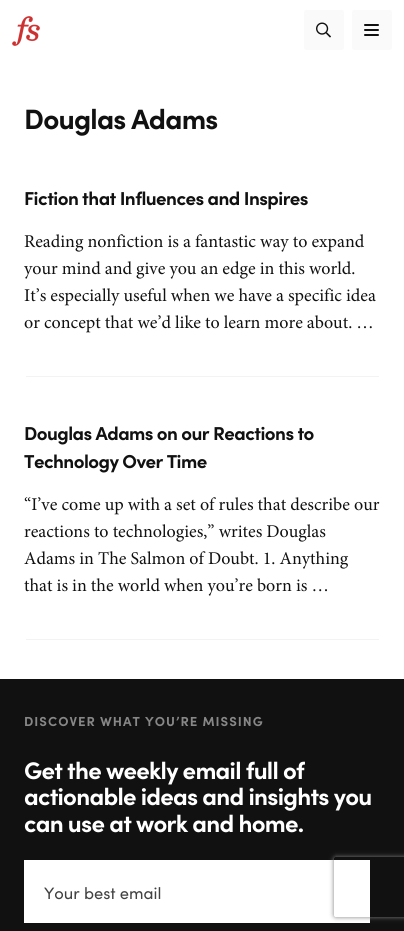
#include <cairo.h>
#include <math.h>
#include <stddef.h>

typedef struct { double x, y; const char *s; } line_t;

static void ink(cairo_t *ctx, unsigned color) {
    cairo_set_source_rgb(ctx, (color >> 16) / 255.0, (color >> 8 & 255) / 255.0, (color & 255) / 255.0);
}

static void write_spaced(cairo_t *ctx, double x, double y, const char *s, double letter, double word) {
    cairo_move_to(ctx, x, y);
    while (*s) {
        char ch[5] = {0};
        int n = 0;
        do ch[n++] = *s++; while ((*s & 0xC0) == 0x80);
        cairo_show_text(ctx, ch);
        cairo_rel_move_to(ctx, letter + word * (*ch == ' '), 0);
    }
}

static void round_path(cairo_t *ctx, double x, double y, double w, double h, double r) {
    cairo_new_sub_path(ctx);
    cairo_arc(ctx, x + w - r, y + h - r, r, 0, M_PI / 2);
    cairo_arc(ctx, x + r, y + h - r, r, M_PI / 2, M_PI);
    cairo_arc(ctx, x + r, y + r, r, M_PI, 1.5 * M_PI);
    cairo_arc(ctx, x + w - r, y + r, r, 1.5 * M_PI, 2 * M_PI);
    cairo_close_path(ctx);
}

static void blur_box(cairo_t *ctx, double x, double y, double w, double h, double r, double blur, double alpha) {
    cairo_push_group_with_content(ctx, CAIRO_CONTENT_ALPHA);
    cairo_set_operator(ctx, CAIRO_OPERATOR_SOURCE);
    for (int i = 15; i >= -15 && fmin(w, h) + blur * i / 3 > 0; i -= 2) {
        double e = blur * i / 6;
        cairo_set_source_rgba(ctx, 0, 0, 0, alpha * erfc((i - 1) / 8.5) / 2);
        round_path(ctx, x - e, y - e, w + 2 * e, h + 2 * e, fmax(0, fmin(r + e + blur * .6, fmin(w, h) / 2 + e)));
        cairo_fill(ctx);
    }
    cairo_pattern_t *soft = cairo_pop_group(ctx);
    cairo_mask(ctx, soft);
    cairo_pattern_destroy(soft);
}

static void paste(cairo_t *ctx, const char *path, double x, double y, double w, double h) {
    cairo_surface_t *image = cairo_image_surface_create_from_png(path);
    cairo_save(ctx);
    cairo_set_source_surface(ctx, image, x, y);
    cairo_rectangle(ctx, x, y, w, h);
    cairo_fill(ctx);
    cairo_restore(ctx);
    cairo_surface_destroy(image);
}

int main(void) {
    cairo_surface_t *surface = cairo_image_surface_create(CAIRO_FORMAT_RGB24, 404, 931);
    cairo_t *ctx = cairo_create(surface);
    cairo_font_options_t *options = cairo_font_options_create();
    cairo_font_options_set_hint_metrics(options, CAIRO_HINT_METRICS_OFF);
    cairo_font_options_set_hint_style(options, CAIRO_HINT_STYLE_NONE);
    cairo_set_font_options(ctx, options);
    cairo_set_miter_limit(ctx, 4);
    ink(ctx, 0xFFFFFF);
    cairo_paint(ctx);
    paste(ctx, "media/1.png", 12, 16, 28, 30);
    ink(ctx, 0xFAFAFA);
    round_path(ctx, 304, 10, 40, 40, 2);
    cairo_fill(ctx);
    paste(ctx, "media/2.png", 316, 22, 15, 16);
    round_path(ctx, 352, 10, 40, 40, 2);
    cairo_fill(ctx);
    ink(ctx, 0x111111);
    round_path(ctx, 364, 29, 15, 2, 1);
    cairo_fill(ctx);
    round_path(ctx, 364, 24, 15, 2, 1);
    cairo_fill(ctx);
    round_path(ctx, 364, 34, 15, 2, 1);
    cairo_fill(ctx);
    cairo_select_font_face(ctx, "Sofia", CAIRO_FONT_SLANT_NORMAL, CAIRO_FONT_WEIGHT_BOLD);
    cairo_set_font_size(ctx, 28);
    write_spaced(ctx, 24, 129, "Douglas Adams", -0.8, 0);
    ink(ctx, 0xF3F3F4);
    cairo_rectangle(ctx, 26, 376, 353, 1);
    cairo_fill(ctx);
    cairo_set_font_size(ctx, 18.7);
    ink(ctx, 0x111111);
    write_spaced(ctx, 24, 205, "Fiction that Influences and Inspires", -0.55, 0);
    cairo_select_font_face(ctx, "Minion", CAIRO_FONT_SLANT_NORMAL, CAIRO_FONT_WEIGHT_NORMAL);
    cairo_set_font_size(ctx, 18);
    {
        static const line_t items[] = {
            {24, 247, "Reading nonfiction is a fantastic way to expand"},
            {24, 274, "your mind and give you an edge in this world."},
            {24, 301, "It’s especially useful when we have a specific idea"},
            {24, 328, "or concept that we’d like to learn more about. …"},
        };
        for (size_t i = 0; i < sizeof items / sizeof *items; i++) {
            cairo_move_to(ctx, items[i].x, items[i].y);
            cairo_show_text(ctx, items[i].s);
        }
    }
    ink(ctx, 0xF3F3F4);
    cairo_rectangle(ctx, 26, 639, 353, 1);
    cairo_fill(ctx);
    cairo_select_font_face(ctx, "Sofia", CAIRO_FONT_SLANT_NORMAL, CAIRO_FONT_WEIGHT_BOLD);
    cairo_set_font_size(ctx, 18.7);
    ink(ctx, 0x111111);
    write_spaced(ctx, 24, 440, "Douglas Adams on our Reactions to", -0.55, 0);
    write_spaced(ctx, 24, 468, "Technology Over Time", -0.55, 0);
    cairo_select_font_face(ctx, "Minion", CAIRO_FONT_SLANT_NORMAL, CAIRO_FONT_WEIGHT_NORMAL);
    cairo_set_font_size(ctx, 18);
    {
        static const line_t items[] = {
            {24, 510, "“I’ve come up with a set of rules that describe our"},
            {24, 537, "reactions to technologies,” writes Douglas"},
            {24, 564, "Adams in The Salmon of Doubt. 1. Anything"},
            {24, 591, "that is in the world when you’re born is …"},
        };
        for (size_t i = 0; i < sizeof items / sizeof *items; i++) {
            cairo_move_to(ctx, items[i].x, items[i].y);
            cairo_show_text(ctx, items[i].s);
        }
    }
    cairo_rectangle(ctx, 0, 679, 404, 252);
    cairo_fill(ctx);
    cairo_select_font_face(ctx, "Sofia", CAIRO_FONT_SLANT_NORMAL, CAIRO_FONT_WEIGHT_BOLD);
    cairo_set_font_size(ctx, 13.1);
    ink(ctx, 0x878787);
    write_spaced(ctx, 24, 726, "DISCOVER WHAT YOU’RE MISSING", 1, 0);
    cairo_set_font_size(ctx, 24);
    ink(ctx, 0xFFFFFF);
    {
        static const line_t items[] = {
            {24, 779, "Get the weekly email full of"},
            {24, 805, "actionable ideas and insights you"},
            {24, 832, "can use at work and home."},
        };
        for (size_t i = 0; i < sizeof items / sizeof *items; i++) {
            write_spaced(ctx, items[i].x, items[i].y, items[i].s, -0.75, 0);
        }
    }
    cairo_rectangle(ctx, 24, 860, 346, 63);
    cairo_fill(ctx);
    cairo_select_font_face(ctx, "Sofia", CAIRO_FONT_SLANT_NORMAL, CAIRO_FONT_WEIGHT_NORMAL);
    cairo_set_font_size(ctx, 16.5);
    ink(ctx, 0x414141);
    cairo_move_to(ctx, 44, 899);
    cairo_show_text(ctx, "Your best email");
    cairo_save(ctx);
    cairo_set_fill_rule(ctx, CAIRO_FILL_RULE_EVEN_ODD);
    cairo_new_path(ctx);
    cairo_move_to(ctx, 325, 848);
    cairo_line_to(ctx, 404, 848);
    cairo_line_to(ctx, 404, 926);
    cairo_line_to(ctx, 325, 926);
    cairo_close_path(ctx);
    cairo_move_to(ctx, 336, 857);
    cairo_line_to(ctx, 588, 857);
    cairo_curve_to(ctx, 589, 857, 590, 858, 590, 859);
    cairo_line_to(ctx, 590, 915);
    cairo_curve_to(ctx, 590, 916, 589, 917, 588, 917);
    cairo_line_to(ctx, 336, 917);
    cairo_curve_to(ctx, 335, 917, 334, 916, 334, 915);
    cairo_line_to(ctx, 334, 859);
    cairo_curve_to(ctx, 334, 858, 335, 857, 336, 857);
    cairo_close_path(ctx);
    cairo_clip(ctx);
    ink(ctx, 0x808080);
    blur_box(ctx, 334, 857, 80, 60, 2, 2.5, 1);
    cairo_restore(ctx);
    cairo_surface_write_to_png(surface, "image.png");
    cairo_font_options_destroy(options);
    cairo_destroy(ctx);
    cairo_surface_destroy(surface);
    return 0;
}
